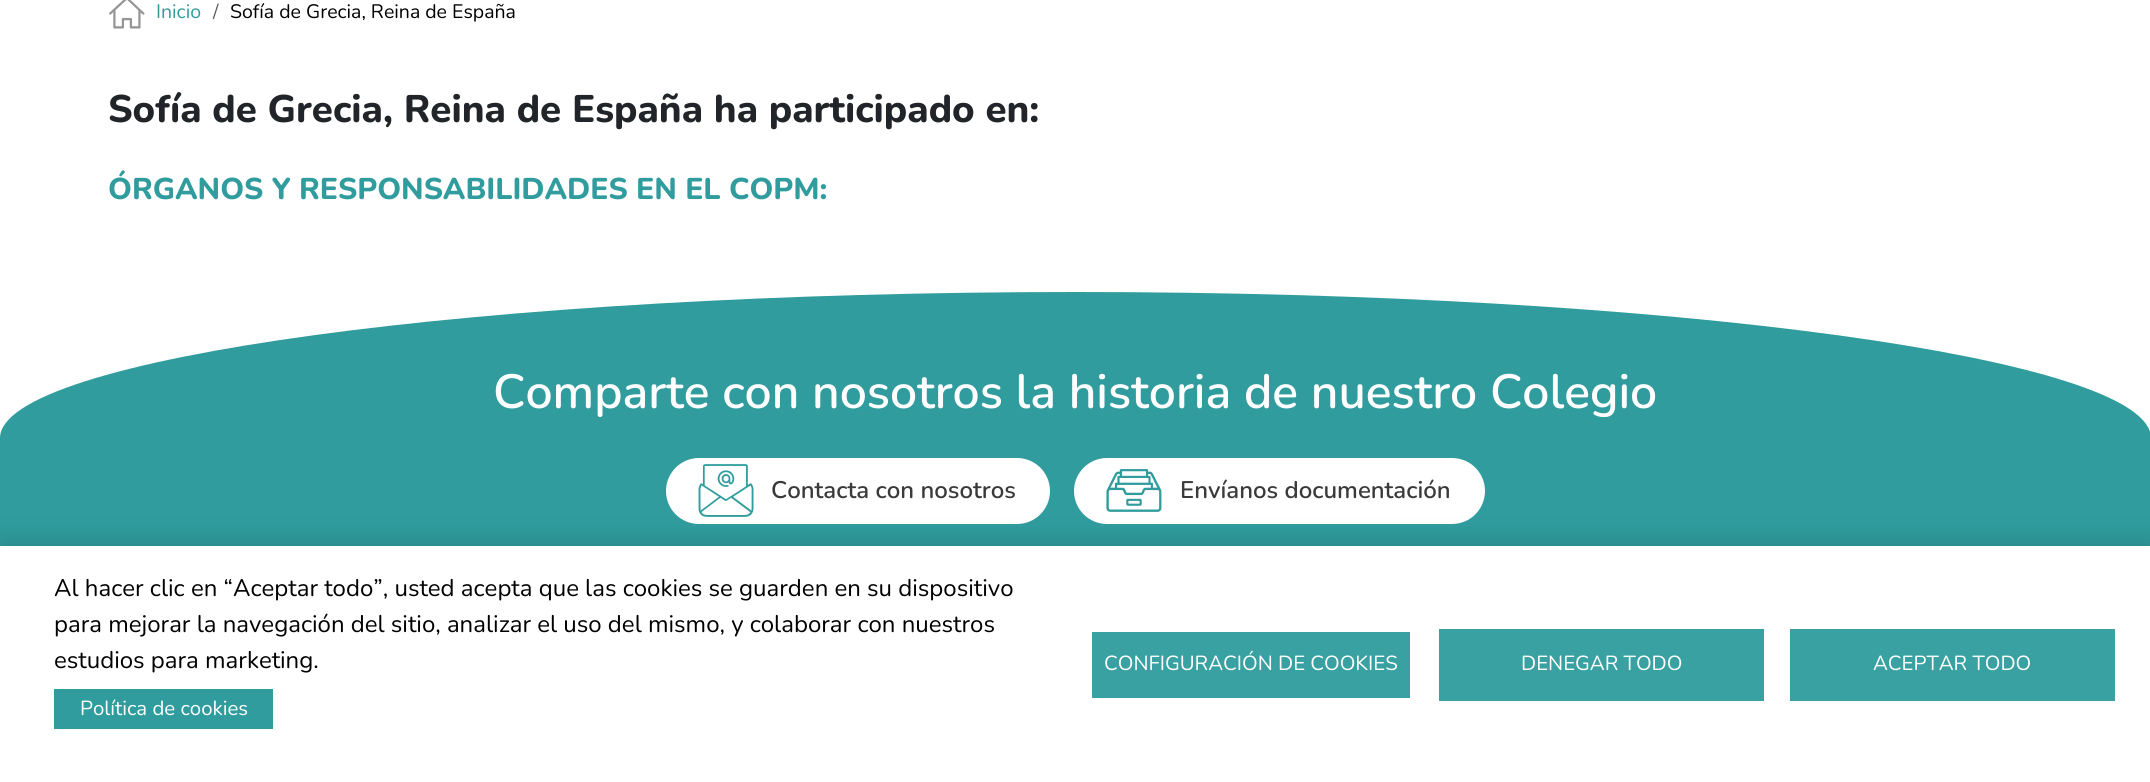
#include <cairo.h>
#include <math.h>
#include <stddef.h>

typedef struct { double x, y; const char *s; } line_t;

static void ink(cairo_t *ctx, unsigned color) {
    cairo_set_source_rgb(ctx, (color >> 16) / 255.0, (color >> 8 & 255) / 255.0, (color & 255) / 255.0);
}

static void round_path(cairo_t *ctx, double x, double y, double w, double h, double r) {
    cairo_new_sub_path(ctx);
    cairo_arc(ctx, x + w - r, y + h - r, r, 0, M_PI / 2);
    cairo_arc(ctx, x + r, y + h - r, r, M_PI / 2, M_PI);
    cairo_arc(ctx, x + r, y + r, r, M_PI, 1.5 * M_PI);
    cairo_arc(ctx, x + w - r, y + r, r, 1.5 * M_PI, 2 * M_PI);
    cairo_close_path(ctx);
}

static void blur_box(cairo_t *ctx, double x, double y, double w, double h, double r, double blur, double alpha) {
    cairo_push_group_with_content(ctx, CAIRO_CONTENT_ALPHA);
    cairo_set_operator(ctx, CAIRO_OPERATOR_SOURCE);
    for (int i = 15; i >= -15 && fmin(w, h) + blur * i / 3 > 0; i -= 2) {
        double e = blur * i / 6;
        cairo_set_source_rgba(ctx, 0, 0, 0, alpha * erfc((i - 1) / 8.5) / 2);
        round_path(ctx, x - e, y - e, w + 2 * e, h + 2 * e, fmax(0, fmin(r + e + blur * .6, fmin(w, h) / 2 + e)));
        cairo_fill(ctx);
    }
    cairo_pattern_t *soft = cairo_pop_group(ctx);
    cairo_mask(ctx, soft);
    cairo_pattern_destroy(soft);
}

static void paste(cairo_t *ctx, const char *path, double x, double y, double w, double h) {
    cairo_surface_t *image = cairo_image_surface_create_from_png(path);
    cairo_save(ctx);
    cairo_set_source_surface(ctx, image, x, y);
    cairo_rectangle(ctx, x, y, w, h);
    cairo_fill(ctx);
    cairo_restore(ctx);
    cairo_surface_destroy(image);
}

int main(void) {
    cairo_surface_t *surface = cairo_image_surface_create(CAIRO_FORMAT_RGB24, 2150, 782);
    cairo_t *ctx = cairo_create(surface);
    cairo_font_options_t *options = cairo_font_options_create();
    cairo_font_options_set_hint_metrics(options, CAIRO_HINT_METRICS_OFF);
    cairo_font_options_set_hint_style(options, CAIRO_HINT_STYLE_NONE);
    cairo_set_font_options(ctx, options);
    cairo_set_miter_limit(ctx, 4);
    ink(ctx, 0xFFFFFF);
    cairo_paint(ctx);
    paste(ctx, "media/1.png", 109, 0, 36, 29);
    cairo_select_font_face(ctx, "Nunito", CAIRO_FONT_SLANT_NORMAL, CAIRO_FONT_WEIGHT_NORMAL);
    cairo_set_font_size(ctx, 19.5);
    ink(ctx, 0x309C9D);
    cairo_move_to(ctx, 156, 18);
    cairo_show_text(ctx, "Inicio");
    ink(ctx, 0x595C5F);
    cairo_move_to(ctx, 213, 18);
    cairo_show_text(ctx, "/");
    ink(ctx, 0x000000);
    cairo_move_to(ctx, 230, 18);
    cairo_show_text(ctx, "Sofía de Grecia, Reina de España");
    cairo_select_font_face(ctx, "Nunito ExtraBold", CAIRO_FONT_SLANT_NORMAL, CAIRO_FONT_WEIGHT_NORMAL);
    cairo_set_font_size(ctx, 38.4);
    ink(ctx, 0x212529);
    cairo_move_to(ctx, 108, 122);
    cairo_show_text(ctx, "Sofía de Grecia, Reina de España ha participado en:");
    cairo_set_font_size(ctx, 30);
    ink(ctx, 0x309C9D);
    cairo_move_to(ctx, 108, 199);
    cairo_show_text(ctx, "ÓRGANOS Y RESPONSABILIDADES EN EL COPM:");
    cairo_new_path(ctx);
    cairo_move_to(ctx, 1076, 292);
    cairo_curve_to(ctx, 1669, 292, 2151, 358, 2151, 438);
    cairo_line_to(ctx, 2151, 584);
    cairo_line_to(ctx, 0, 584);
    cairo_line_to(ctx, 0, 438);
    cairo_curve_to(ctx, 0, 358, 482, 292, 1076, 292);
    cairo_close_path(ctx);
    cairo_fill(ctx);
    cairo_select_font_face(ctx, "Nunito SemiBold", CAIRO_FONT_SLANT_NORMAL, CAIRO_FONT_WEIGHT_NORMAL);
    cairo_set_font_size(ctx, 48);
    ink(ctx, 0xFFFFFF);
    cairo_move_to(ctx, 493, 408);
    cairo_show_text(ctx, "Comparte con nosotros la historia de nuestro Colegio");
    round_path(ctx, 666, 458, 384, 66, 33);
    cairo_fill(ctx);
    paste(ctx, "media/2.png", 698, 464, 56, 53);
    cairo_set_font_size(ctx, 24);
    ink(ctx, 0x3A3A3A);
    cairo_move_to(ctx, 771, 498);
    cairo_show_text(ctx, "Contacta con nosotros");
    ink(ctx, 0xFFFFFF);
    round_path(ctx, 1074, 458, 411, 66, 33);
    cairo_fill(ctx);
    paste(ctx, "media/3.png", 1106, 469, 56, 43);
    ink(ctx, 0x3A3A3A);
    cairo_move_to(ctx, 1180, 498);
    cairo_show_text(ctx, "Envíanos documentación");
    ink(ctx, 0x000000);
    blur_box(ctx, 0, 546, 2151, 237, 0, 13.5, 0.2);
    ink(ctx, 0xFFFFFF);
    cairo_rectangle(ctx, 0, 546, 2150, 236);
    cairo_fill(ctx);
    cairo_select_font_face(ctx, "Nunito", CAIRO_FONT_SLANT_NORMAL, CAIRO_FONT_WEIGHT_NORMAL);
    ink(ctx, 0x000000);
    {
        static const line_t items[] = {
            {54, 596, "Al hacer clic en “Aceptar todo”, usted acepta que las cookies se guarden en su dispositivo"},
            {54, 632, "para mejorar la navegación del sitio, analizar el uso del mismo, y colaborar con nuestros"},
            {54, 668, "estudios para marketing."},
        };
        for (size_t i = 0; i < sizeof items / sizeof *items; i++) {
            cairo_move_to(ctx, items[i].x, items[i].y);
            cairo_show_text(ctx, items[i].s);
        }
    }
    ink(ctx, 0x309C9D);
    cairo_rectangle(ctx, 54, 689, 219, 40);
    cairo_fill(ctx);
    cairo_set_font_size(ctx, 20.4);
    ink(ctx, 0xFFFFFF);
    cairo_move_to(ctx, 80, 715);
    cairo_show_text(ctx, "Política de cookies");
    ink(ctx, 0x3AA1A2);
    cairo_rectangle(ctx, 1092, 632, 318, 66);
    cairo_fill(ctx);
    ink(ctx, 0xFFFFFF);
    cairo_move_to(ctx, 1104, 670);
    cairo_show_text(ctx, "CONFIGURACIÓN DE COOKIES");
    ink(ctx, 0x3AA1A2);
    cairo_rectangle(ctx, 1439, 629, 325, 72);
    cairo_fill(ctx);
    ink(ctx, 0xFFFFFF);
    cairo_move_to(ctx, 1521, 670);
    cairo_show_text(ctx, "DENEGAR TODO");
    ink(ctx, 0x3AA1A2);
    cairo_rectangle(ctx, 1790, 629, 325, 72);
    cairo_fill(ctx);
    ink(ctx, 0xFFFFFF);
    cairo_move_to(ctx, 1873, 670);
    cairo_show_text(ctx, "ACEPTAR TODO");
    cairo_surface_write_to_png(surface, "image.png");
    cairo_font_options_destroy(options);
    cairo_destroy(ctx);
    cairo_surface_destroy(surface);
    return 0;
}
